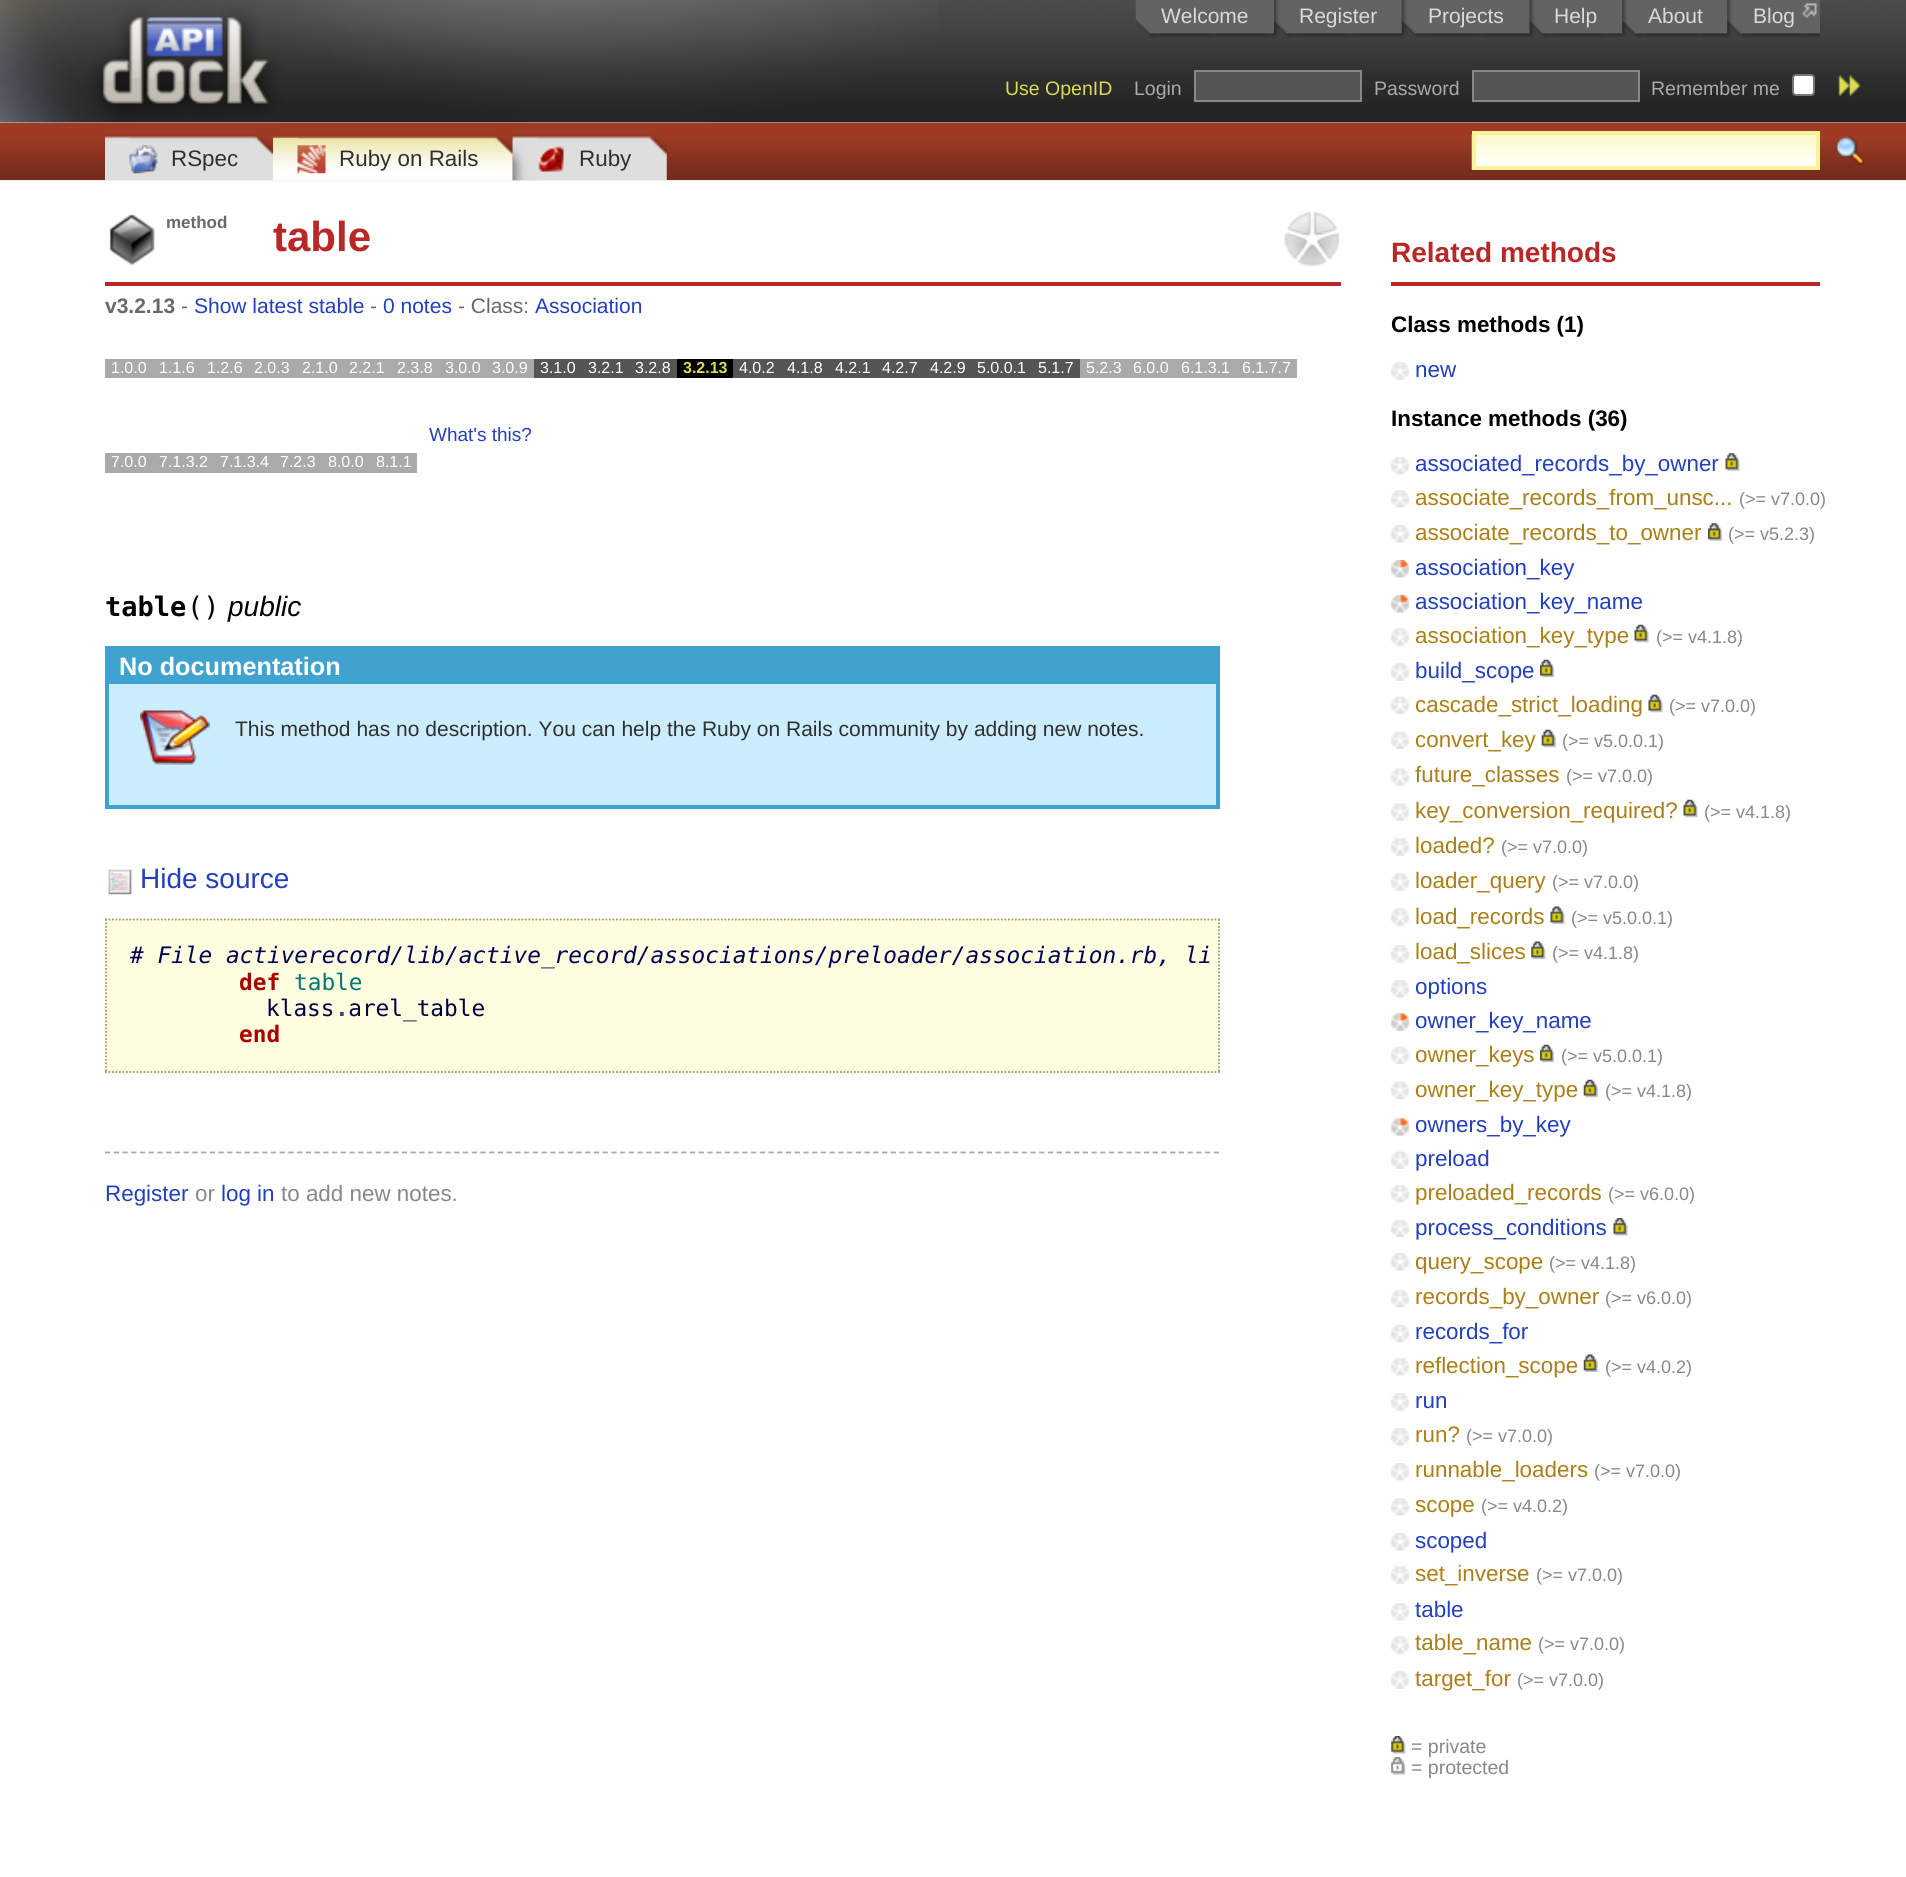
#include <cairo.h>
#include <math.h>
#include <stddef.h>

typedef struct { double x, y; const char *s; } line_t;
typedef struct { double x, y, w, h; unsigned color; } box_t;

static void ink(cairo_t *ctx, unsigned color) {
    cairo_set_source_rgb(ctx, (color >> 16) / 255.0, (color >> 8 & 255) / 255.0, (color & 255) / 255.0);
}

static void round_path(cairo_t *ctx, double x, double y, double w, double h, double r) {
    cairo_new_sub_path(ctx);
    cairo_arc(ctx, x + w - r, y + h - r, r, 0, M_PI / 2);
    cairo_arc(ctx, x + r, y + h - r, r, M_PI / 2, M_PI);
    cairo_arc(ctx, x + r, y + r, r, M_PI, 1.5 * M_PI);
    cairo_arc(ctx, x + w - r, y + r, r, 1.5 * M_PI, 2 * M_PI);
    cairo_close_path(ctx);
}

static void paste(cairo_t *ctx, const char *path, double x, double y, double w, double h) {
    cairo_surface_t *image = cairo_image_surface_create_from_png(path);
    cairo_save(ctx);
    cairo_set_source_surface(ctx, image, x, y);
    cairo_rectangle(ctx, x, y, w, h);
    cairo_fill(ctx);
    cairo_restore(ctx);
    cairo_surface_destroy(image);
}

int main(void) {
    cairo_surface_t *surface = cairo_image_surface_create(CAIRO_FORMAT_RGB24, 1906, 1877);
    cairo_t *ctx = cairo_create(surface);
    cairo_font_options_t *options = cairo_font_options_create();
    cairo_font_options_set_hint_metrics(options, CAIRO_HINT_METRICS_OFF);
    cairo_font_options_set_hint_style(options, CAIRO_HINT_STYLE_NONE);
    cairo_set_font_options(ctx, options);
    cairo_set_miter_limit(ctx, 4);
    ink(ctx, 0xFFFFFF);
    cairo_paint(ctx);
    paste(ctx, "media/1.png", 0, 0, 1906, 123);
    paste(ctx, "media/2.png", 0, 0, 939, 123);
    paste(ctx, "media/3.png", 1135, 0, 139, 38);
    cairo_select_font_face(ctx, "Liberation Sans", CAIRO_FONT_SLANT_NORMAL, CAIRO_FONT_WEIGHT_NORMAL);
    cairo_set_font_size(ctx, 21);
    ink(ctx, 0xDADADA);
    cairo_move_to(ctx, 1161, 23);
    cairo_show_text(ctx, "Welcome");
    paste(ctx, "media/4.png", 1274, 0, 128, 38);
    cairo_move_to(ctx, 1299, 23);
    cairo_show_text(ctx, "Register");
    paste(ctx, "media/5.png", 1401, 0, 129, 38);
    cairo_move_to(ctx, 1428, 23);
    cairo_show_text(ctx, "Projects");
    paste(ctx, "media/6.png", 1529, 0, 94, 38);
    cairo_move_to(ctx, 1554, 23);
    cairo_show_text(ctx, "Help");
    paste(ctx, "media/7.png", 1622, 0, 106, 38);
    cairo_move_to(ctx, 1648, 23);
    cairo_show_text(ctx, "About");
    paste(ctx, "media/8.png", 1727, 0, 93, 38);
    paste(ctx, "media/9.png", 1802, 3, 15, 15);
    cairo_move_to(ctx, 1753, 23);
    cairo_show_text(ctx, "Blog");
    cairo_set_font_size(ctx, 19.5);
    ink(ctx, 0xDBDB51);
    cairo_move_to(ctx, 1005, 95);
    cairo_show_text(ctx, "Use OpenID");
    ink(ctx, 0xAAAAAA);
    cairo_move_to(ctx, 1134, 95);
    cairo_show_text(ctx, "Login");
    ink(ctx, 0x555555);
    cairo_rectangle(ctx, 1195, 71, 166, 30);
    cairo_fill_preserve(ctx);
    ink(ctx, 0x888888);
    cairo_stroke(ctx);
    ink(ctx, 0xAAAAAA);
    cairo_move_to(ctx, 1374, 95);
    cairo_show_text(ctx, "Password");
    ink(ctx, 0x555555);
    cairo_rectangle(ctx, 1473, 71, 166, 30);
    cairo_fill_preserve(ctx);
    ink(ctx, 0x888888);
    cairo_stroke(ctx);
    ink(ctx, 0xAAAAAA);
    cairo_move_to(ctx, 1651, 95);
    cairo_show_text(ctx, "Remember me");
    ink(ctx, 0xFFFFFF);
    round_path(ctx, 1793, 75, 21, 20, 3);
    cairo_fill_preserve(ctx);
    ink(ctx, 0x767676);
    cairo_stroke(ctx);
    paste(ctx, "media/10.png", 1837, 75, 24, 22);
    ink(ctx, 0x9F3B25);
    cairo_rectangle(ctx, 0, 123, 1906, 57);
    cairo_fill(ctx);
    paste(ctx, "media/11.png", 0, 139, 1906, 42);
    paste(ctx, "media/12.png", 105, 134, 168, 46);
    paste(ctx, "media/13.png", 105, 137, 25, 2);
    paste(ctx, "media/14.png", 129, 145, 29, 29);
    cairo_set_font_size(ctx, 22.4);
    ink(ctx, 0x303030);
    cairo_move_to(ctx, 171, 166);
    cairo_show_text(ctx, "RSpec");
    paste(ctx, "media/15.png", 273, 135, 240, 46);
    paste(ctx, "media/16.png", 273, 137, 25, 2);
    paste(ctx, "media/17.png", 297, 145, 29, 29);
    cairo_move_to(ctx, 339, 166);
    cairo_show_text(ctx, "Ruby on Rails");
    paste(ctx, "media/18.png", 512, 134, 155, 46);
    paste(ctx, "media/19.png", 512, 137, 26, 44);
    paste(ctx, "media/20.png", 538, 146, 26, 26);
    cairo_move_to(ctx, 579, 166);
    cairo_show_text(ctx, "Ruby");
    paste(ctx, "media/21.png", 1471, 134, 345, 36);
    cairo_rectangle(ctx, 1474, 133, 344, 35);
    ink(ctx, 0xFAF39D);
    cairo_set_line_width(ctx, 4);
    cairo_stroke(ctx);
    paste(ctx, "media/22.png", 1835, 136, 29, 29);
    ink(ctx, 0xBA2727);
    cairo_rectangle(ctx, 105, 282, 1236, 4);
    cairo_fill(ctx);
    paste(ctx, "media/23.png", 109, 214, 46, 51);
    cairo_select_font_face(ctx, "Liberation Sans", CAIRO_FONT_SLANT_NORMAL, CAIRO_FONT_WEIGHT_BOLD);
    cairo_set_font_size(ctx, 17);
    ink(ctx, 0x696969);
    cairo_move_to(ctx, 166, 228);
    cairo_show_text(ctx, "method");
    cairo_set_font_size(ctx, 42);
    ink(ctx, 0xBA2727);
    cairo_move_to(ctx, 273, 251);
    cairo_show_text(ctx, "table");
    paste(ctx, "media/24.png", 1284, 211, 56, 56);
    cairo_set_font_size(ctx, 21);
    ink(ctx, 0x696969);
    cairo_move_to(ctx, 105, 313);
    cairo_show_text(ctx, "v3.2.13");
    cairo_select_font_face(ctx, "Liberation Sans", CAIRO_FONT_SLANT_NORMAL, CAIRO_FONT_WEIGHT_NORMAL);
    cairo_move_to(ctx, 181, 313);
    cairo_show_text(ctx, "-");
    ink(ctx, 0x233FBF);
    cairo_move_to(ctx, 194, 313);
    cairo_show_text(ctx, "Show latest stable");
    ink(ctx, 0x696969);
    cairo_move_to(ctx, 370, 313);
    cairo_show_text(ctx, "-");
    ink(ctx, 0x233FBF);
    cairo_move_to(ctx, 383, 313);
    cairo_show_text(ctx, "0 notes");
    ink(ctx, 0x696969);
    cairo_move_to(ctx, 458, 313);
    cairo_show_text(ctx, "- Class:");
    ink(ctx, 0x233FBF);
    cairo_move_to(ctx, 535, 313);
    cairo_show_text(ctx, "Association");
    ink(ctx, 0xAAAAAA);
    cairo_rectangle(ctx, 105, 359, 429, 19);
    cairo_fill(ctx);
    cairo_set_font_size(ctx, 16);
    ink(ctx, 0xFFFFFF);
    {
        static const line_t items[] = {
            {111, 373, "1.0.0"},
            {159, 373, "1.1.6"},
            {207, 373, "1.2.6"},
            {254, 373, "2.0.3"},
            {302, 373, "2.1.0"},
            {349, 373, "2.2.1"},
            {397, 373, "2.3.8"},
            {445, 373, "3.0.0"},
            {492, 373, "3.0.9"},
        };
        for (size_t i = 0; i < sizeof items / sizeof *items; i++) {
            cairo_move_to(ctx, items[i].x, items[i].y);
            cairo_show_text(ctx, items[i].s);
        }
    }
    ink(ctx, 0x555555);
    cairo_rectangle(ctx, 534, 359, 143, 19);
    cairo_fill(ctx);
    ink(ctx, 0xFFFFFF);
    {
        static const line_t items[] = {
            {540, 373, "3.1.0"},
            {588, 373, "3.2.1"},
            {635, 373, "3.2.8"},
        };
        for (size_t i = 0; i < sizeof items / sizeof *items; i++) {
            cairo_move_to(ctx, items[i].x, items[i].y);
            cairo_show_text(ctx, items[i].s);
        }
    }
    ink(ctx, 0x000000);
    cairo_rectangle(ctx, 677, 359, 56, 19);
    cairo_fill(ctx);
    cairo_select_font_face(ctx, "Liberation Sans", CAIRO_FONT_SLANT_NORMAL, CAIRO_FONT_WEIGHT_BOLD);
    ink(ctx, 0xDBDB51);
    cairo_move_to(ctx, 683, 373);
    cairo_show_text(ctx, "3.2.13");
    ink(ctx, 0x555555);
    cairo_rectangle(ctx, 733, 359, 347, 19);
    cairo_fill(ctx);
    cairo_select_font_face(ctx, "Liberation Sans", CAIRO_FONT_SLANT_NORMAL, CAIRO_FONT_WEIGHT_NORMAL);
    ink(ctx, 0xFFFFFF);
    {
        static const line_t items[] = {
            {739, 373, "4.0.2"},
            {787, 373, "4.1.8"},
            {835, 373, "4.2.1"},
            {882, 373, "4.2.7"},
            {930, 373, "4.2.9"},
            {977, 373, "5.0.0.1"},
            {1038, 373, "5.1.7"},
        };
        for (size_t i = 0; i < sizeof items / sizeof *items; i++) {
            cairo_move_to(ctx, items[i].x, items[i].y);
            cairo_show_text(ctx, items[i].s);
        }
    }
    ink(ctx, 0xAAAAAA);
    cairo_rectangle(ctx, 1080, 359, 217, 19);
    cairo_fill(ctx);
    ink(ctx, 0xFFFFFF);
    {
        static const line_t items[] = {
            {1086, 373, "5.2.3"},
            {1133, 373, "6.0.0"},
            {1181, 373, "6.1.3.1"},
            {1242, 373, "6.1.7.7"},
        };
        for (size_t i = 0; i < sizeof items / sizeof *items; i++) {
            cairo_move_to(ctx, items[i].x, items[i].y);
            cairo_show_text(ctx, items[i].s);
        }
    }
    cairo_set_font_size(ctx, 19);
    ink(ctx, 0x233FBF);
    cairo_move_to(ctx, 429, 441);
    cairo_show_text(ctx, "What's this?");
    ink(ctx, 0xAAAAAA);
    cairo_rectangle(ctx, 105, 453, 312, 20);
    cairo_fill(ctx);
    cairo_set_font_size(ctx, 16);
    ink(ctx, 0xFFFFFF);
    {
        static const line_t items[] = {
            {111, 467, "7.0.0"},
            {159, 467, "7.1.3.2"},
            {220, 467, "7.1.3.4"},
            {280, 467, "7.2.3"},
            {328, 467, "8.0.0"},
            {376, 467, "8.1.1"},
        };
        for (size_t i = 0; i < sizeof items / sizeof *items; i++) {
            cairo_move_to(ctx, items[i].x, items[i].y);
            cairo_show_text(ctx, items[i].s);
        }
    }
    ink(ctx, 0xBA2727);
    cairo_rectangle(ctx, 1391, 282, 429, 4);
    cairo_fill(ctx);
    cairo_select_font_face(ctx, "Liberation Sans", CAIRO_FONT_SLANT_NORMAL, CAIRO_FONT_WEIGHT_BOLD);
    cairo_set_font_size(ctx, 28);
    cairo_move_to(ctx, 1391, 262);
    cairo_show_text(ctx, "Related methods");
    cairo_set_font_size(ctx, 22.4);
    ink(ctx, 0x000000);
    cairo_move_to(ctx, 1391, 332);
    cairo_show_text(ctx, "Class methods (1)");
    paste(ctx, "media/25.png", 1391, 362, 18, 18);
    cairo_select_font_face(ctx, "Liberation Sans", CAIRO_FONT_SLANT_NORMAL, CAIRO_FONT_WEIGHT_NORMAL);
    ink(ctx, 0x233FBF);
    cairo_move_to(ctx, 1415, 377);
    cairo_show_text(ctx, "new");
    cairo_select_font_face(ctx, "Liberation Sans", CAIRO_FONT_SLANT_NORMAL, CAIRO_FONT_WEIGHT_BOLD);
    ink(ctx, 0x000000);
    cairo_move_to(ctx, 1391, 426);
    cairo_show_text(ctx, "Instance methods (36)");
    paste(ctx, "media/26.png", 1391, 456, 18, 19);
    cairo_select_font_face(ctx, "Liberation Sans", CAIRO_FONT_SLANT_NORMAL, CAIRO_FONT_WEIGHT_NORMAL);
    ink(ctx, 0x233FBF);
    cairo_move_to(ctx, 1415, 471);
    cairo_show_text(ctx, "associated_records_by_owner");
    paste(ctx, "media/27.png", 1725, 453, 15, 18);
    paste(ctx, "media/28.png", 1391, 490, 18, 18);
    ink(ctx, 0xAB7F17);
    cairo_move_to(ctx, 1415, 505);
    cairo_show_text(ctx, "associate_records_from_unsc...");
    cairo_set_font_size(ctx, 18);
    ink(ctx, 0x888888);
    cairo_move_to(ctx, 1739, 505);
    cairo_show_text(ctx, "(>= v7.0.0)");
    paste(ctx, "media/28.png", 1391, 525, 18, 18);
    cairo_set_font_size(ctx, 22.4);
    ink(ctx, 0xAB7F17);
    cairo_move_to(ctx, 1415, 540);
    cairo_show_text(ctx, "associate_records_to_owner");
    paste(ctx, "media/29.png", 1708, 523, 14, 18);
    cairo_set_font_size(ctx, 18);
    ink(ctx, 0x888888);
    cairo_move_to(ctx, 1728, 540);
    cairo_show_text(ctx, "(>= v5.2.3)");
    paste(ctx, "media/30.png", 1391, 560, 18, 18);
    cairo_set_font_size(ctx, 22.4);
    ink(ctx, 0x233FBF);
    cairo_move_to(ctx, 1415, 575);
    cairo_show_text(ctx, "association_key");
    paste(ctx, "media/30.png", 1391, 595, 18, 18);
    cairo_move_to(ctx, 1415, 609);
    cairo_show_text(ctx, "association_key_name");
    paste(ctx, "media/25.png", 1391, 628, 18, 18);
    ink(ctx, 0xAB7F17);
    cairo_move_to(ctx, 1415, 643);
    cairo_show_text(ctx, "association_key_type");
    paste(ctx, "media/31.png", 1634, 624, 15, 19);
    cairo_set_font_size(ctx, 18);
    ink(ctx, 0x888888);
    cairo_move_to(ctx, 1656, 643);
    cairo_show_text(ctx, "(>= v4.1.8)");
    paste(ctx, "media/25.png", 1391, 663, 18, 18);
    cairo_set_font_size(ctx, 22.4);
    ink(ctx, 0x233FBF);
    cairo_move_to(ctx, 1415, 678);
    cairo_show_text(ctx, "build_scope");
    paste(ctx, "media/32.png", 1540, 659, 14, 19);
    paste(ctx, "media/33.png", 1391, 696, 18, 18);
    ink(ctx, 0xAB7F17);
    cairo_move_to(ctx, 1415, 712);
    cairo_show_text(ctx, "cascade_strict_loading");
    paste(ctx, "media/31.png", 1648, 694, 15, 19);
    cairo_set_font_size(ctx, 18);
    ink(ctx, 0x888888);
    cairo_move_to(ctx, 1669, 712);
    cairo_show_text(ctx, "(>= v7.0.0)");
    paste(ctx, "media/33.png", 1391, 731, 18, 18);
    cairo_set_font_size(ctx, 22.4);
    ink(ctx, 0xAB7F17);
    cairo_move_to(ctx, 1415, 747);
    cairo_show_text(ctx, "convert_key");
    paste(ctx, "media/34.png", 1541, 729, 15, 19);
    cairo_set_font_size(ctx, 18);
    ink(ctx, 0x888888);
    cairo_move_to(ctx, 1562, 747);
    cairo_show_text(ctx, "(>= v5.0.0.1)");
    paste(ctx, "media/25.png", 1391, 768, 18, 18);
    cairo_set_font_size(ctx, 22.4);
    ink(ctx, 0xAB7F17);
    cairo_move_to(ctx, 1415, 782);
    cairo_show_text(ctx, "future_classes");
    cairo_set_font_size(ctx, 18);
    ink(ctx, 0x888888);
    cairo_move_to(ctx, 1566, 782);
    cairo_show_text(ctx, "(>= v7.0.0)");
    paste(ctx, "media/25.png", 1391, 803, 18, 18);
    cairo_set_font_size(ctx, 22.4);
    ink(ctx, 0xAB7F17);
    cairo_move_to(ctx, 1415, 818);
    cairo_show_text(ctx, "key_conversion_required?");
    paste(ctx, "media/31.png", 1683, 799, 15, 19);
    cairo_set_font_size(ctx, 18);
    ink(ctx, 0x888888);
    cairo_move_to(ctx, 1704, 818);
    cairo_show_text(ctx, "(>= v4.1.8)");
    paste(ctx, "media/25.png", 1391, 838, 18, 18);
    cairo_set_font_size(ctx, 22.4);
    ink(ctx, 0xAB7F17);
    cairo_move_to(ctx, 1415, 853);
    cairo_show_text(ctx, "loaded?");
    cairo_set_font_size(ctx, 18);
    ink(ctx, 0x888888);
    cairo_move_to(ctx, 1501, 853);
    cairo_show_text(ctx, "(>= v7.0.0)");
    paste(ctx, "media/25.png", 1391, 873, 18, 18);
    cairo_set_font_size(ctx, 22.4);
    ink(ctx, 0xAB7F17);
    cairo_move_to(ctx, 1415, 888);
    cairo_show_text(ctx, "loader_query");
    cairo_set_font_size(ctx, 18);
    ink(ctx, 0x888888);
    cairo_move_to(ctx, 1552, 888);
    cairo_show_text(ctx, "(>= v7.0.0)");
    paste(ctx, "media/25.png", 1391, 908, 18, 18);
    cairo_set_font_size(ctx, 22.4);
    ink(ctx, 0xAB7F17);
    cairo_move_to(ctx, 1415, 924);
    cairo_show_text(ctx, "load_records");
    paste(ctx, "media/35.png", 1550, 906, 15, 18);
    cairo_set_font_size(ctx, 18);
    ink(ctx, 0x888888);
    cairo_move_to(ctx, 1571, 924);
    cairo_show_text(ctx, "(>= v5.0.0.1)");
    paste(ctx, "media/28.png", 1391, 945, 18, 18);
    cairo_set_font_size(ctx, 22.4);
    ink(ctx, 0xAB7F17);
    cairo_move_to(ctx, 1415, 959);
    cairo_show_text(ctx, "load_slices");
    paste(ctx, "media/36.png", 1531, 941, 15, 18);
    cairo_set_font_size(ctx, 18);
    ink(ctx, 0x888888);
    cairo_move_to(ctx, 1552, 959);
    cairo_show_text(ctx, "(>= v4.1.8)");
    paste(ctx, "media/28.png", 1391, 980, 18, 18);
    cairo_set_font_size(ctx, 22.4);
    ink(ctx, 0x233FBF);
    cairo_move_to(ctx, 1415, 994);
    cairo_show_text(ctx, "options");
    paste(ctx, "media/37.png", 1391, 1013, 18, 18);
    cairo_move_to(ctx, 1415, 1028);
    cairo_show_text(ctx, "owner_key_name");
    paste(ctx, "media/33.png", 1391, 1046, 18, 18);
    ink(ctx, 0xAB7F17);
    cairo_move_to(ctx, 1415, 1062);
    cairo_show_text(ctx, "owner_keys");
    paste(ctx, "media/32.png", 1540, 1044, 14, 19);
    cairo_set_font_size(ctx, 18);
    ink(ctx, 0x888888);
    cairo_move_to(ctx, 1561, 1062);
    cairo_show_text(ctx, "(>= v5.0.0.1)");
    paste(ctx, "media/33.png", 1391, 1081, 18, 18);
    cairo_set_font_size(ctx, 22.4);
    ink(ctx, 0xAB7F17);
    cairo_move_to(ctx, 1415, 1097);
    cairo_show_text(ctx, "owner_key_type");
    paste(ctx, "media/38.png", 1583, 1079, 15, 19);
    cairo_set_font_size(ctx, 18);
    ink(ctx, 0x888888);
    cairo_move_to(ctx, 1605, 1097);
    cairo_show_text(ctx, "(>= v4.1.8)");
    paste(ctx, "media/37.png", 1391, 1118, 18, 18);
    cairo_set_font_size(ctx, 22.4);
    ink(ctx, 0x233FBF);
    cairo_move_to(ctx, 1415, 1132);
    cairo_show_text(ctx, "owners_by_key");
    paste(ctx, "media/33.png", 1391, 1151, 18, 18);
    cairo_move_to(ctx, 1415, 1166);
    cairo_show_text(ctx, "preload");
    paste(ctx, "media/26.png", 1391, 1184, 18, 19);
    ink(ctx, 0xAB7F17);
    cairo_move_to(ctx, 1415, 1200);
    cairo_show_text(ctx, "preloaded_records");
    cairo_set_font_size(ctx, 18);
    ink(ctx, 0x888888);
    cairo_move_to(ctx, 1608, 1200);
    cairo_show_text(ctx, "(>= v6.0.0)");
    paste(ctx, "media/26.png", 1391, 1219, 18, 19);
    cairo_set_font_size(ctx, 22.4);
    ink(ctx, 0x233FBF);
    cairo_move_to(ctx, 1415, 1235);
    cairo_show_text(ctx, "process_conditions");
    paste(ctx, "media/39.png", 1613, 1218, 15, 18);
    paste(ctx, "media/28.png", 1391, 1253, 18, 18);
    ink(ctx, 0xAB7F17);
    cairo_move_to(ctx, 1415, 1269);
    cairo_show_text(ctx, "query_scope");
    cairo_set_font_size(ctx, 18);
    ink(ctx, 0x888888);
    cairo_move_to(ctx, 1549, 1269);
    cairo_show_text(ctx, "(>= v4.1.8)");
    paste(ctx, "media/26.png", 1391, 1289, 18, 19);
    cairo_set_font_size(ctx, 22.4);
    ink(ctx, 0xAB7F17);
    cairo_move_to(ctx, 1415, 1304);
    cairo_show_text(ctx, "records_by_owner");
    cairo_set_font_size(ctx, 18);
    ink(ctx, 0x888888);
    cairo_move_to(ctx, 1605, 1304);
    cairo_show_text(ctx, "(>= v6.0.0)");
    paste(ctx, "media/26.png", 1391, 1324, 18, 19);
    cairo_set_font_size(ctx, 22.4);
    ink(ctx, 0x233FBF);
    cairo_move_to(ctx, 1415, 1339);
    cairo_show_text(ctx, "records_for");
    paste(ctx, "media/28.png", 1391, 1358, 18, 18);
    ink(ctx, 0xAB7F17);
    cairo_move_to(ctx, 1415, 1373);
    cairo_show_text(ctx, "reflection_scope");
    paste(ctx, "media/40.png", 1583, 1354, 15, 18);
    cairo_set_font_size(ctx, 18);
    ink(ctx, 0x888888);
    cairo_move_to(ctx, 1605, 1373);
    cairo_show_text(ctx, "(>= v4.0.2)");
    paste(ctx, "media/28.png", 1391, 1393, 18, 18);
    cairo_set_font_size(ctx, 22.4);
    ink(ctx, 0x233FBF);
    cairo_move_to(ctx, 1415, 1408);
    cairo_show_text(ctx, "run");
    paste(ctx, "media/28.png", 1391, 1428, 18, 18);
    ink(ctx, 0xAB7F17);
    cairo_move_to(ctx, 1415, 1442);
    cairo_show_text(ctx, "run?");
    cairo_set_font_size(ctx, 18);
    ink(ctx, 0x888888);
    cairo_move_to(ctx, 1466, 1442);
    cairo_show_text(ctx, "(>= v7.0.0)");
    paste(ctx, "media/28.png", 1391, 1463, 18, 18);
    cairo_set_font_size(ctx, 22.4);
    ink(ctx, 0xAB7F17);
    cairo_move_to(ctx, 1415, 1477);
    cairo_show_text(ctx, "runnable_loaders");
    cairo_set_font_size(ctx, 18);
    ink(ctx, 0x888888);
    cairo_move_to(ctx, 1594, 1477);
    cairo_show_text(ctx, "(>= v7.0.0)");
    paste(ctx, "media/28.png", 1391, 1498, 18, 18);
    cairo_set_font_size(ctx, 22.4);
    ink(ctx, 0xAB7F17);
    cairo_move_to(ctx, 1415, 1512);
    cairo_show_text(ctx, "scope");
    cairo_set_font_size(ctx, 18);
    ink(ctx, 0x888888);
    cairo_move_to(ctx, 1481, 1512);
    cairo_show_text(ctx, "(>= v4.0.2)");
    paste(ctx, "media/28.png", 1391, 1533, 18, 18);
    cairo_set_font_size(ctx, 22.4);
    ink(ctx, 0x233FBF);
    cairo_move_to(ctx, 1415, 1548);
    cairo_show_text(ctx, "scoped");
    paste(ctx, "media/25.png", 1391, 1566, 18, 18);
    ink(ctx, 0xAB7F17);
    cairo_move_to(ctx, 1415, 1581);
    cairo_show_text(ctx, "set_inverse");
    cairo_set_font_size(ctx, 18);
    ink(ctx, 0x888888);
    cairo_move_to(ctx, 1536, 1581);
    cairo_show_text(ctx, "(>= v7.0.0)");
    paste(ctx, "media/28.png", 1391, 1603, 18, 18);
    cairo_set_font_size(ctx, 22.4);
    ink(ctx, 0x233FBF);
    cairo_move_to(ctx, 1415, 1617);
    cairo_show_text(ctx, "table");
    paste(ctx, "media/25.png", 1391, 1636, 18, 18);
    ink(ctx, 0xAB7F17);
    cairo_move_to(ctx, 1415, 1650);
    cairo_show_text(ctx, "table_name");
    cairo_set_font_size(ctx, 18);
    ink(ctx, 0x888888);
    cairo_move_to(ctx, 1538, 1650);
    cairo_show_text(ctx, "(>= v7.0.0)");
    paste(ctx, "media/25.png", 1391, 1671, 18, 18);
    cairo_set_font_size(ctx, 22.4);
    ink(ctx, 0xAB7F17);
    cairo_move_to(ctx, 1415, 1686);
    cairo_show_text(ctx, "target_for");
    cairo_set_font_size(ctx, 18);
    ink(ctx, 0x888888);
    cairo_move_to(ctx, 1517, 1686);
    cairo_show_text(ctx, "(>= v7.0.0)");
    paste(ctx, "media/41.png", 1391, 1736, 15, 18);
    cairo_set_font_size(ctx, 19.5);
    cairo_move_to(ctx, 1411, 1753);
    cairo_show_text(ctx, "= private");
    paste(ctx, "media/42.png", 1391, 1757, 15, 18);
    cairo_move_to(ctx, 1411, 1774);
    cairo_show_text(ctx, "= protected");
    cairo_select_font_face(ctx, "DejaVu Sans Mono", CAIRO_FONT_SLANT_NORMAL, CAIRO_FONT_WEIGHT_BOLD);
    cairo_set_font_size(ctx, 27);
    ink(ctx, 0x000000);
    cairo_move_to(ctx, 105, 616);
    cairo_show_text(ctx, "table");
    cairo_select_font_face(ctx, "DejaVu Sans Mono", CAIRO_FONT_SLANT_NORMAL, CAIRO_FONT_WEIGHT_NORMAL);
    cairo_move_to(ctx, 187, 616);
    cairo_show_text(ctx, "()");
    cairo_select_font_face(ctx, "Liberation Sans", CAIRO_FONT_SLANT_ITALIC, CAIRO_FONT_WEIGHT_NORMAL);
    cairo_set_font_size(ctx, 28);
    cairo_move_to(ctx, 228, 616);
    cairo_show_text(ctx, "public");
    ink(ctx, 0xCCEDFD);
    cairo_rectangle(ctx, 109, 684, 1107, 121);
    cairo_fill(ctx);
    paste(ctx, "media/43.png", 140, 710, 70, 55);
    {
        static const box_t items[] = {
            {105, 646, 1115, 2, 0x40A3CF},
            {1216, 646, 4, 163, 0x40A3CF},
            {105, 805, 1115, 4, 0x40A3CF},
            {105, 646, 4, 163, 0x40A3CF},
            {109, 648, 1107, 36, 0x40A3CF},
        };
        for (size_t i = 0; i < sizeof items / sizeof *items; i++) {
            ink(ctx, items[i].color);
            cairo_rectangle(ctx, items[i].x, items[i].y, items[i].w, items[i].h);
            cairo_fill(ctx);
        }
    }
    cairo_select_font_face(ctx, "Liberation Sans", CAIRO_FONT_SLANT_NORMAL, CAIRO_FONT_WEIGHT_BOLD);
    cairo_set_font_size(ctx, 25.25);
    ink(ctx, 0xFFFFFF);
    cairo_move_to(ctx, 119, 675);
    cairo_show_text(ctx, "No documentation");
    cairo_select_font_face(ctx, "Liberation Sans", CAIRO_FONT_SLANT_NORMAL, CAIRO_FONT_WEIGHT_NORMAL);
    cairo_set_font_size(ctx, 21);
    ink(ctx, 0x303030);
    cairo_move_to(ctx, 235, 736);
    cairo_show_text(ctx, "This method has no description. You can help the Ruby on Rails community by adding new notes.");
    paste(ctx, "media/44.png", 108, 869, 24, 26);
    cairo_set_font_size(ctx, 28);
    ink(ctx, 0x233FBF);
    cairo_move_to(ctx, 140, 888);
    cairo_show_text(ctx, "Hide source");
    ink(ctx, 0xFFFDDF);
    cairo_rectangle(ctx, 105, 919, 1115, 154);
    cairo_fill(ctx);
    cairo_new_path(ctx);
    cairo_move_to(ctx, 105, 919.5);
    cairo_line_to(ctx, 1220, 919.5);
    ink(ctx, 0x9F9B63);
    cairo_set_line_width(ctx, 1.8);
    cairo_set_dash(ctx, (double[]){1.75, 1.75}, 2, 0);
    cairo_stroke(ctx);
    cairo_new_path(ctx);
    cairo_move_to(ctx, 1219, 919);
    cairo_line_to(ctx, 1219, 1073);
    cairo_stroke(ctx);
    cairo_new_path(ctx);
    cairo_move_to(ctx, 105, 1072);
    cairo_line_to(ctx, 1220, 1072);
    cairo_stroke(ctx);
    cairo_new_path(ctx);
    cairo_move_to(ctx, 106, 919);
    cairo_line_to(ctx, 106, 1073);
    cairo_stroke(ctx);
    cairo_select_font_face(ctx, "DejaVu Sans Mono", CAIRO_FONT_SLANT_ITALIC, CAIRO_FONT_WEIGHT_NORMAL);
    cairo_set_font_size(ctx, 22.75);
    ink(ctx, 0x000055);
    cairo_move_to(ctx, 130, 963);
    cairo_show_text(ctx, "# File activerecord/lib/active_record/associations/preloader/association.rb, li");
    cairo_select_font_face(ctx, "DejaVu Sans Mono", CAIRO_FONT_SLANT_NORMAL, CAIRO_FONT_WEIGHT_BOLD);
    ink(ctx, 0xAA0000);
    cairo_move_to(ctx, 239, 990);
    cairo_show_text(ctx, "def");
    cairo_select_font_face(ctx, "DejaVu Sans Mono", CAIRO_FONT_SLANT_NORMAL, CAIRO_FONT_WEIGHT_NORMAL);
    ink(ctx, 0x007777);
    cairo_move_to(ctx, 294, 990);
    cairo_show_text(ctx, "table");
    ink(ctx, 0x000044);
    cairo_move_to(ctx, 266, 1016);
    cairo_show_text(ctx, "klass arel_table");
    cairo_select_font_face(ctx, "DejaVu Sans Mono", CAIRO_FONT_SLANT_NORMAL, CAIRO_FONT_WEIGHT_BOLD);
    ink(ctx, 0x444477);
    cairo_move_to(ctx, 335, 1016);
    cairo_show_text(ctx, ".");
    ink(ctx, 0xAA0000);
    cairo_move_to(ctx, 239, 1042);
    cairo_show_text(ctx, "end");
    cairo_new_path(ctx);
    cairo_move_to(ctx, 105, 1152.5);
    cairo_line_to(ctx, 1220, 1152.5);
    ink(ctx, 0xAAAAAA);
    cairo_set_dash(ctx, (double[]){5.25, 3.48}, 2, 0);
    cairo_stroke(ctx);
    cairo_select_font_face(ctx, "Liberation Sans", CAIRO_FONT_SLANT_NORMAL, CAIRO_FONT_WEIGHT_NORMAL);
    cairo_set_font_size(ctx, 22.4);
    ink(ctx, 0x233FBF);
    cairo_move_to(ctx, 105, 1201);
    cairo_show_text(ctx, "Register");
    ink(ctx, 0x888888);
    cairo_move_to(ctx, 195, 1201);
    cairo_show_text(ctx, "or");
    ink(ctx, 0x233FBF);
    cairo_move_to(ctx, 221, 1201);
    cairo_show_text(ctx, "log in");
    ink(ctx, 0x888888);
    cairo_move_to(ctx, 281, 1201);
    cairo_show_text(ctx, "to add new notes.");
    cairo_surface_write_to_png(surface, "image.png");
    cairo_font_options_destroy(options);
    cairo_destroy(ctx);
    cairo_surface_destroy(surface);
    return 0;
}
